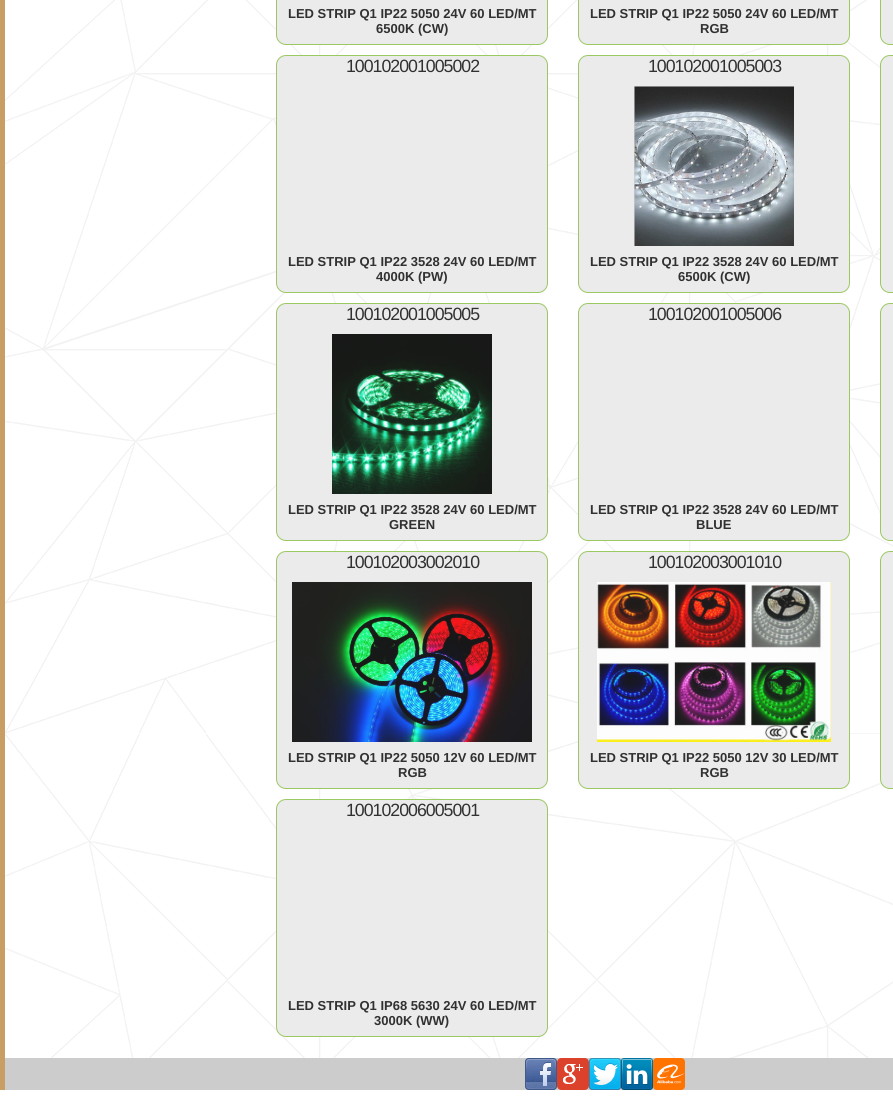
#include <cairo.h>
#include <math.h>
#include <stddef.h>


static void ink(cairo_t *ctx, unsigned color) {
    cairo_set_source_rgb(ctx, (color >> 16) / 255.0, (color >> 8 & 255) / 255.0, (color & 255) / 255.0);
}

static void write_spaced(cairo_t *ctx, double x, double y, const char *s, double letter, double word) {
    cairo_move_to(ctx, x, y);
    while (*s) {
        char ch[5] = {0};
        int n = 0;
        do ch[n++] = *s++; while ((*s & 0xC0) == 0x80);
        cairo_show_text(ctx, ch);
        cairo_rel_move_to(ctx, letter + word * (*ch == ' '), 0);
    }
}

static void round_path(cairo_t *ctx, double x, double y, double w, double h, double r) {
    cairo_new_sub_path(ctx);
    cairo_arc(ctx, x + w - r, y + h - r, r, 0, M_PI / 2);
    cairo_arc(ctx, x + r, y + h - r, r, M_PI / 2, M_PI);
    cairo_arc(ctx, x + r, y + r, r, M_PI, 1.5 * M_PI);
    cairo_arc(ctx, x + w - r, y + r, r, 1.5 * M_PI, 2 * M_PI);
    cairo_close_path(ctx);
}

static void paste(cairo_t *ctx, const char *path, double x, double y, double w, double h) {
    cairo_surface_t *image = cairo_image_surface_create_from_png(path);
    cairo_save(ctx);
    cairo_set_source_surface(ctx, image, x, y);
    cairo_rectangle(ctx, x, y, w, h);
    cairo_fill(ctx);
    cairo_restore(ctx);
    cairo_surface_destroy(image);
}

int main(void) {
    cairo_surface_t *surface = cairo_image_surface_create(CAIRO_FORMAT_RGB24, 893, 1109);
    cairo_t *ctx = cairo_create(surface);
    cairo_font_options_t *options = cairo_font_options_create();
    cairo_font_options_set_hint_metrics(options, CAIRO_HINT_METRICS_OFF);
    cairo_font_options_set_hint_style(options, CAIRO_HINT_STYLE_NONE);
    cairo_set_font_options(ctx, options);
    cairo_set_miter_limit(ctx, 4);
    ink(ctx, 0xFFFFFF);
    cairo_paint(ctx);
    paste(ctx, "media/1.png", 5, 0, 888, 1058);
    ink(ctx, 0xC89E64);
    cairo_rectangle(ctx, 0, 0, 5, 1090);
    cairo_fill(ctx);
    ink(ctx, 0xEBEBEB);
    round_path(ctx, 276.5, -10.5, 271, 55, 9.5);
    cairo_fill_preserve(ctx);
    ink(ctx, 0x9CC864);
    cairo_set_line_width(ctx, 1);
    cairo_stroke(ctx);
    cairo_select_font_face(ctx, "Liberation Sans", CAIRO_FONT_SLANT_NORMAL, CAIRO_FONT_WEIGHT_BOLD);
    cairo_set_font_size(ctx, 13);
    ink(ctx, 0x313131);
    cairo_move_to(ctx, 288, 18);
    cairo_show_text(ctx, "LED STRIP Q1 IP22 5050 24V 60 LED/MT");
    cairo_move_to(ctx, 376, 33);
    cairo_show_text(ctx, "6500K (CW)");
    ink(ctx, 0xEBEBEB);
    round_path(ctx, 578.5, -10.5, 271, 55, 9.5);
    cairo_fill_preserve(ctx);
    ink(ctx, 0x9CC864);
    cairo_stroke(ctx);
    ink(ctx, 0x313131);
    cairo_move_to(ctx, 590, 18);
    cairo_show_text(ctx, "LED STRIP Q1 IP22 5050 24V 60 LED/MT");
    cairo_move_to(ctx, 700, 33);
    cairo_show_text(ctx, "RGB");
    ink(ctx, 0xEBEBEB);
    round_path(ctx, 880.5, -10.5, 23, 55, 9.5);
    cairo_fill_preserve(ctx);
    ink(ctx, 0x9CC864);
    cairo_stroke(ctx);
    ink(ctx, 0xEBEBEB);
    round_path(ctx, 276.5, 55.5, 271, 237, 9.5);
    cairo_fill_preserve(ctx);
    ink(ctx, 0x9CC864);
    cairo_stroke(ctx);
    cairo_select_font_face(ctx, "Liberation Sans", CAIRO_FONT_SLANT_NORMAL, CAIRO_FONT_WEIGHT_NORMAL);
    cairo_set_font_size(ctx, 17.75);
    ink(ctx, 0x313131);
    write_spaced(ctx, 346, 72, "100102001005002", -1, 0);
    cairo_select_font_face(ctx, "Liberation Sans", CAIRO_FONT_SLANT_NORMAL, CAIRO_FONT_WEIGHT_BOLD);
    cairo_set_font_size(ctx, 13);
    cairo_move_to(ctx, 288, 266);
    cairo_show_text(ctx, "LED STRIP Q1 IP22 3528 24V 60 LED/MT");
    cairo_move_to(ctx, 376, 281);
    cairo_show_text(ctx, "4000K (PW)");
    ink(ctx, 0xEBEBEB);
    round_path(ctx, 578.5, 55.5, 271, 237, 9.5);
    cairo_fill_preserve(ctx);
    ink(ctx, 0x9CC864);
    cairo_stroke(ctx);
    cairo_select_font_face(ctx, "Liberation Sans", CAIRO_FONT_SLANT_NORMAL, CAIRO_FONT_WEIGHT_NORMAL);
    cairo_set_font_size(ctx, 17.75);
    ink(ctx, 0x313131);
    write_spaced(ctx, 648, 72, "100102001005003", -1, 0);
    paste(ctx, "media/2.png", 634, 86, 160, 160);
    cairo_select_font_face(ctx, "Liberation Sans", CAIRO_FONT_SLANT_NORMAL, CAIRO_FONT_WEIGHT_BOLD);
    cairo_set_font_size(ctx, 13);
    cairo_move_to(ctx, 590, 266);
    cairo_show_text(ctx, "LED STRIP Q1 IP22 3528 24V 60 LED/MT");
    cairo_move_to(ctx, 678, 281);
    cairo_show_text(ctx, "6500K (CW)");
    ink(ctx, 0xEBEBEB);
    round_path(ctx, 880.5, 55.5, 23, 237, 9.5);
    cairo_fill_preserve(ctx);
    ink(ctx, 0x9CC864);
    cairo_stroke(ctx);
    ink(ctx, 0xEBEBEB);
    round_path(ctx, 276.5, 303.5, 271, 237, 9.5);
    cairo_fill_preserve(ctx);
    ink(ctx, 0x9CC864);
    cairo_stroke(ctx);
    cairo_select_font_face(ctx, "Liberation Sans", CAIRO_FONT_SLANT_NORMAL, CAIRO_FONT_WEIGHT_NORMAL);
    cairo_set_font_size(ctx, 17.75);
    ink(ctx, 0x313131);
    write_spaced(ctx, 346, 320, "100102001005005", -1, 0);
    paste(ctx, "media/3.png", 332, 334, 160, 160);
    cairo_select_font_face(ctx, "Liberation Sans", CAIRO_FONT_SLANT_NORMAL, CAIRO_FONT_WEIGHT_BOLD);
    cairo_set_font_size(ctx, 13);
    cairo_move_to(ctx, 288, 514);
    cairo_show_text(ctx, "LED STRIP Q1 IP22 3528 24V 60 LED/MT");
    cairo_move_to(ctx, 389, 529);
    cairo_show_text(ctx, "GREEN");
    ink(ctx, 0xEBEBEB);
    round_path(ctx, 578.5, 303.5, 271, 237, 9.5);
    cairo_fill_preserve(ctx);
    ink(ctx, 0x9CC864);
    cairo_stroke(ctx);
    cairo_select_font_face(ctx, "Liberation Sans", CAIRO_FONT_SLANT_NORMAL, CAIRO_FONT_WEIGHT_NORMAL);
    cairo_set_font_size(ctx, 17.75);
    ink(ctx, 0x313131);
    write_spaced(ctx, 648, 320, "100102001005006", -1, 0);
    cairo_select_font_face(ctx, "Liberation Sans", CAIRO_FONT_SLANT_NORMAL, CAIRO_FONT_WEIGHT_BOLD);
    cairo_set_font_size(ctx, 13);
    cairo_move_to(ctx, 590, 514);
    cairo_show_text(ctx, "LED STRIP Q1 IP22 3528 24V 60 LED/MT");
    cairo_move_to(ctx, 696, 529);
    cairo_show_text(ctx, "BLUE");
    ink(ctx, 0xEBEBEB);
    round_path(ctx, 880.5, 303.5, 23, 237, 9.5);
    cairo_fill_preserve(ctx);
    ink(ctx, 0x9CC864);
    cairo_stroke(ctx);
    ink(ctx, 0xEBEBEB);
    round_path(ctx, 276.5, 551.5, 271, 237, 9.5);
    cairo_fill_preserve(ctx);
    ink(ctx, 0x9CC864);
    cairo_stroke(ctx);
    cairo_select_font_face(ctx, "Liberation Sans", CAIRO_FONT_SLANT_NORMAL, CAIRO_FONT_WEIGHT_NORMAL);
    cairo_set_font_size(ctx, 17.75);
    ink(ctx, 0x313131);
    write_spaced(ctx, 346, 568, "100102003002010", -1, 0);
    paste(ctx, "media/4.png", 292, 582, 240, 160);
    cairo_select_font_face(ctx, "Liberation Sans", CAIRO_FONT_SLANT_NORMAL, CAIRO_FONT_WEIGHT_BOLD);
    cairo_set_font_size(ctx, 13);
    cairo_move_to(ctx, 288, 762);
    cairo_show_text(ctx, "LED STRIP Q1 IP22 5050 12V 60 LED/MT");
    cairo_move_to(ctx, 398, 777);
    cairo_show_text(ctx, "RGB");
    ink(ctx, 0xEBEBEB);
    round_path(ctx, 578.5, 551.5, 271, 237, 9.5);
    cairo_fill_preserve(ctx);
    ink(ctx, 0x9CC864);
    cairo_stroke(ctx);
    cairo_select_font_face(ctx, "Liberation Sans", CAIRO_FONT_SLANT_NORMAL, CAIRO_FONT_WEIGHT_NORMAL);
    cairo_set_font_size(ctx, 17.75);
    ink(ctx, 0x313131);
    write_spaced(ctx, 648, 568, "100102003001010", -1, 0);
    paste(ctx, "media/5.png", 597, 582, 234, 160);
    cairo_select_font_face(ctx, "Liberation Sans", CAIRO_FONT_SLANT_NORMAL, CAIRO_FONT_WEIGHT_BOLD);
    cairo_set_font_size(ctx, 13);
    cairo_move_to(ctx, 590, 762);
    cairo_show_text(ctx, "LED STRIP Q1 IP22 5050 12V 30 LED/MT");
    cairo_move_to(ctx, 700, 777);
    cairo_show_text(ctx, "RGB");
    ink(ctx, 0xEBEBEB);
    round_path(ctx, 880.5, 551.5, 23, 237, 9.5);
    cairo_fill_preserve(ctx);
    ink(ctx, 0x9CC864);
    cairo_stroke(ctx);
    ink(ctx, 0xEBEBEB);
    round_path(ctx, 276.5, 799.5, 271, 237, 9.5);
    cairo_fill_preserve(ctx);
    ink(ctx, 0x9CC864);
    cairo_stroke(ctx);
    cairo_select_font_face(ctx, "Liberation Sans", CAIRO_FONT_SLANT_NORMAL, CAIRO_FONT_WEIGHT_NORMAL);
    cairo_set_font_size(ctx, 17.75);
    ink(ctx, 0x313131);
    write_spaced(ctx, 346, 816, "100102006005001", -1, 0);
    cairo_select_font_face(ctx, "Liberation Sans", CAIRO_FONT_SLANT_NORMAL, CAIRO_FONT_WEIGHT_BOLD);
    cairo_set_font_size(ctx, 13);
    cairo_move_to(ctx, 288, 1010);
    cairo_show_text(ctx, "LED STRIP Q1 IP68 5630 24V 60 LED/MT");
    cairo_move_to(ctx, 374, 1025);
    cairo_show_text(ctx, "3000K (WW)");
    ink(ctx, 0xCCCCCC);
    cairo_rectangle(ctx, 5, 1058, 888, 32);
    cairo_fill(ctx);
    paste(ctx, "media/6.png", 525, 1058, 32, 32);
    paste(ctx, "media/7.png", 557, 1058, 32, 32);
    paste(ctx, "media/8.png", 589, 1058, 32, 32);
    paste(ctx, "media/9.png", 621, 1058, 32, 32);
    paste(ctx, "media/10.png", 653, 1058, 32, 32);
    cairo_surface_write_to_png(surface, "image.png");
    cairo_font_options_destroy(options);
    cairo_destroy(ctx);
    cairo_surface_destroy(surface);
    return 0;
}
